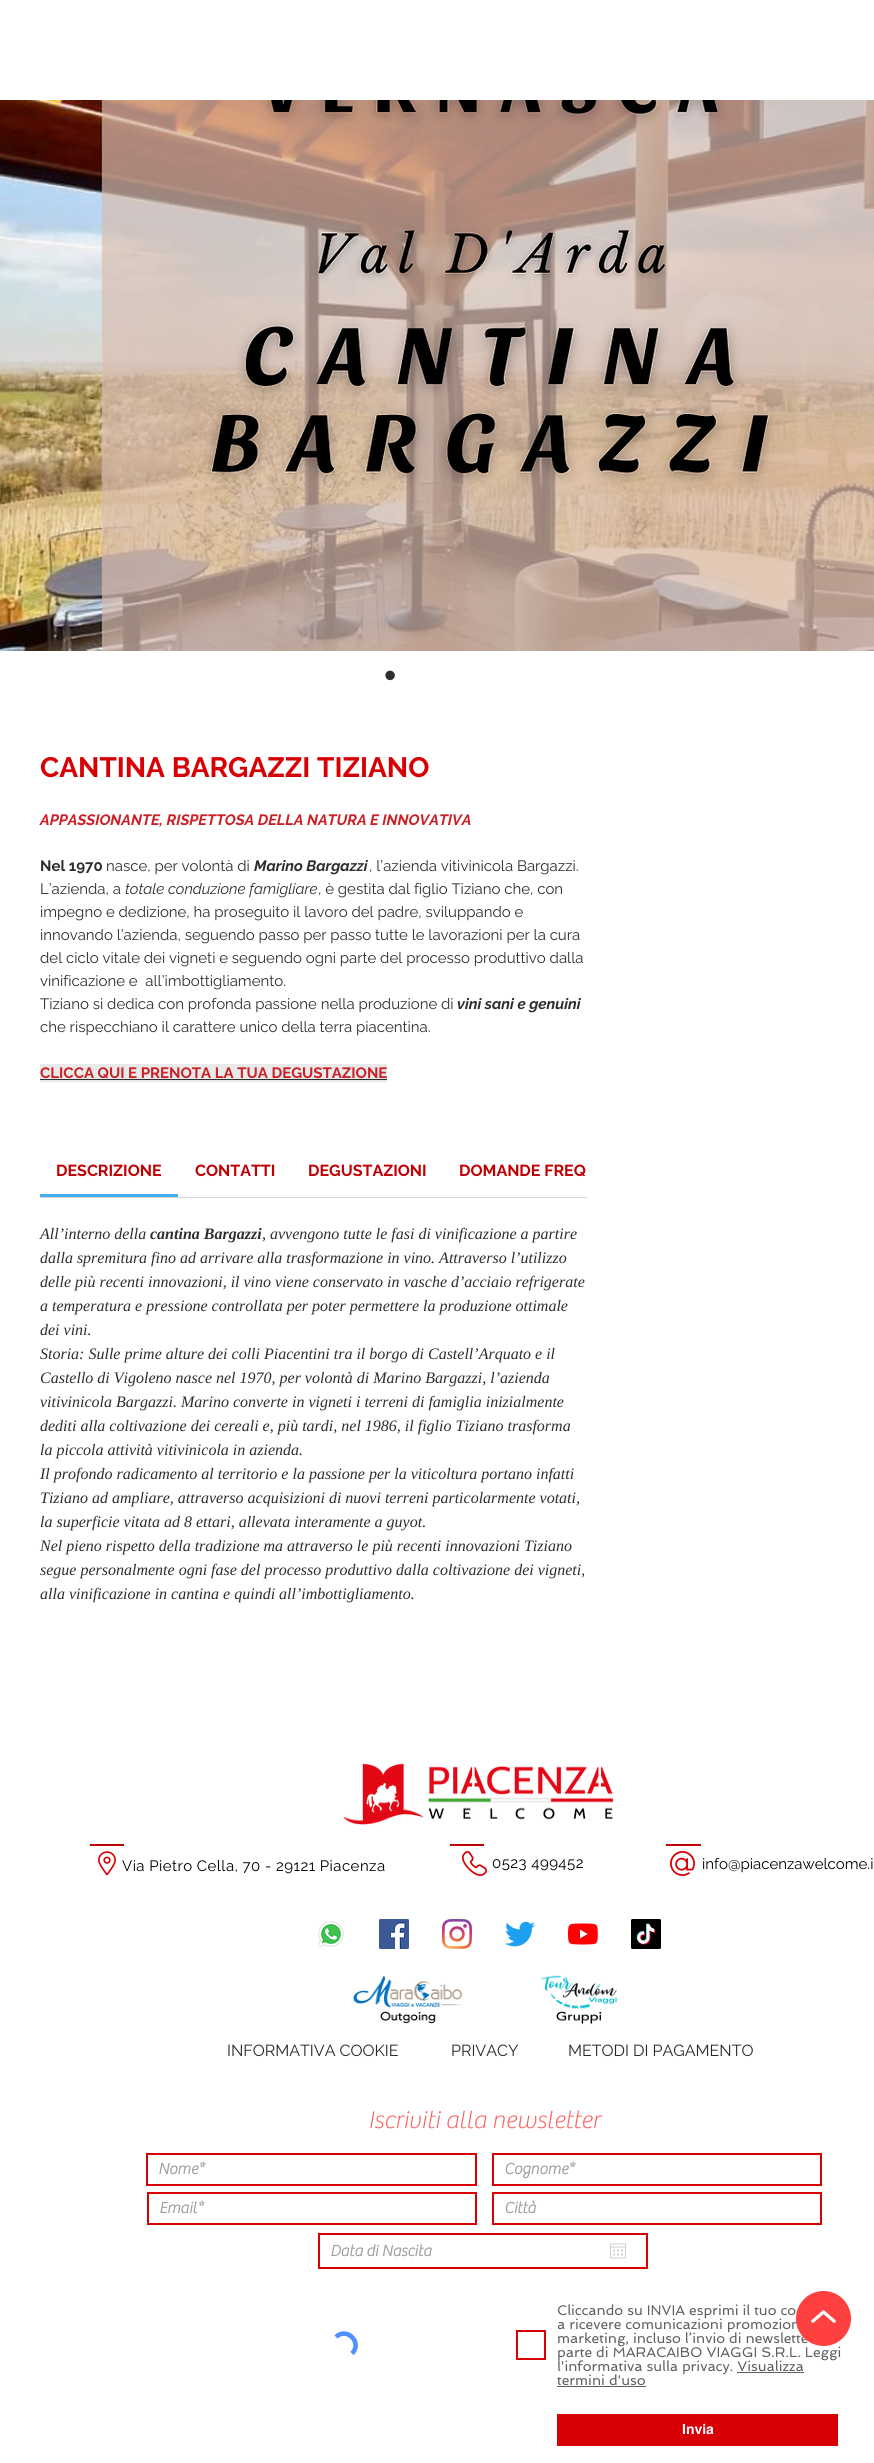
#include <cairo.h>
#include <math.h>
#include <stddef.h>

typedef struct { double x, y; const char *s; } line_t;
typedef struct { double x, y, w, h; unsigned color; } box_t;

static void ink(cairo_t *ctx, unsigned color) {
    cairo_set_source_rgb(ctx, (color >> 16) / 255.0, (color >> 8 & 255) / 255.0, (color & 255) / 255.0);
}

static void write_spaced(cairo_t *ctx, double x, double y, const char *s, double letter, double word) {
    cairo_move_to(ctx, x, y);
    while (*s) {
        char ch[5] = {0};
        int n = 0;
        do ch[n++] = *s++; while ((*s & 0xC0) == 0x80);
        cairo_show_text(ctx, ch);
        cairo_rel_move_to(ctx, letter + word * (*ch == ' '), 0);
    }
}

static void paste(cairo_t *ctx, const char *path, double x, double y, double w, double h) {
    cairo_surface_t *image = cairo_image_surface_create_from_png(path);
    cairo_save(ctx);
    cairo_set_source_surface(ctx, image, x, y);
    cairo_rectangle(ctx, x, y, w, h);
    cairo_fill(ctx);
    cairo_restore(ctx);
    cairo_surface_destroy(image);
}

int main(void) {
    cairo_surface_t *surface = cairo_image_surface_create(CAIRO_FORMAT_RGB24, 874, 2463);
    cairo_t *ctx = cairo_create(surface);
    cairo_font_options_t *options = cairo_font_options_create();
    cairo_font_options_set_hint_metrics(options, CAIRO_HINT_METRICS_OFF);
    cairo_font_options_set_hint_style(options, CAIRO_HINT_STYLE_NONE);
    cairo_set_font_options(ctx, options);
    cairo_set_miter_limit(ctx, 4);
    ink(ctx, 0xFFFFFF);
    cairo_paint(ctx);
    paste(ctx, "media/1.png", 0, 100, 874, 551);
    cairo_select_font_face(ctx, "Liberation Sans", CAIRO_FONT_SLANT_NORMAL, CAIRO_FONT_WEIGHT_NORMAL);
    cairo_set_font_size(ctx, 35);
    ink(ctx, 0x2F2E2E);
    cairo_move_to(ctx, 384, 687);
    cairo_show_text(ctx, "•");
    cairo_select_font_face(ctx, "Raleway", CAIRO_FONT_SLANT_NORMAL, CAIRO_FONT_WEIGHT_BOLD);
    cairo_set_font_size(ctx, 28);
    ink(ctx, 0xD90005);
    cairo_move_to(ctx, 40, 777);
    cairo_show_text(ctx, "CANTINA BARGAZZI TIZIANO");
    cairo_select_font_face(ctx, "Raleway", CAIRO_FONT_SLANT_ITALIC, CAIRO_FONT_WEIGHT_BOLD);
    cairo_set_font_size(ctx, 15);
    ink(ctx, 0xCB2026);
    cairo_move_to(ctx, 40, 825);
    cairo_show_text(ctx, "APPASSIONANTE, RISPETTOSA DELLA NATURA E INNOVATIVA");
    cairo_select_font_face(ctx, "Raleway", CAIRO_FONT_SLANT_NORMAL, CAIRO_FONT_WEIGHT_BOLD);
    ink(ctx, 0x2F2E2E);
    cairo_move_to(ctx, 40, 871);
    cairo_show_text(ctx, "Nel 1970");
    cairo_select_font_face(ctx, "Raleway", CAIRO_FONT_SLANT_NORMAL, CAIRO_FONT_WEIGHT_NORMAL);
    cairo_move_to(ctx, 106, 871);
    cairo_show_text(ctx, "nasce, per volontà di");
    cairo_select_font_face(ctx, "Raleway", CAIRO_FONT_SLANT_ITALIC, CAIRO_FONT_WEIGHT_BOLD);
    cairo_move_to(ctx, 254, 871);
    cairo_show_text(ctx, "Marino Bargazzi");
    cairo_select_font_face(ctx, "Raleway", CAIRO_FONT_SLANT_NORMAL, CAIRO_FONT_WEIGHT_NORMAL);
    cairo_move_to(ctx, 369, 871);
    cairo_show_text(ctx, ", l’azienda vitivinicola Bargazzi.");
    cairo_move_to(ctx, 40, 894);
    cairo_show_text(ctx, "L’azienda, a");
    cairo_select_font_face(ctx, "Raleway", CAIRO_FONT_SLANT_ITALIC, CAIRO_FONT_WEIGHT_NORMAL);
    cairo_move_to(ctx, 125, 894);
    cairo_show_text(ctx, "totale conduzione famigliare");
    cairo_select_font_face(ctx, "Raleway", CAIRO_FONT_SLANT_NORMAL, CAIRO_FONT_WEIGHT_NORMAL);
    {
        static const line_t items[] = {
            {318, 894, ", è gestita dal figlio Tiziano che, con"},
            {40, 917, "impegno e dedizione, ha proseguito il lavoro del padre, sviluppando e"},
            {40, 940, "innovando l’azienda, seguendo passo per passo tutte le lavorazioni per la cura"},
            {40, 963, "del ciclo vitale dei vigneti e seguendo ogni parte del processo produttivo dalla"},
            {40, 986, "vinificazione e  all’imbottigliamento."},
            {40, 1009, "Tiziano si dedica con profonda passione nella produzione di"},
        };
        for (size_t i = 0; i < sizeof items / sizeof *items; i++) {
            cairo_move_to(ctx, items[i].x, items[i].y);
            cairo_show_text(ctx, items[i].s);
        }
    }
    cairo_select_font_face(ctx, "Raleway", CAIRO_FONT_SLANT_ITALIC, CAIRO_FONT_WEIGHT_BOLD);
    cairo_move_to(ctx, 457, 1009);
    cairo_show_text(ctx, "vini sani e genuini");
    cairo_select_font_face(ctx, "Raleway", CAIRO_FONT_SLANT_NORMAL, CAIRO_FONT_WEIGHT_NORMAL);
    cairo_move_to(ctx, 40, 1032);
    cairo_show_text(ctx, "che rispecchiano il carattere unico della terra piacentina.");
    ink(ctx, 0xE9E9E9);
    cairo_rectangle(ctx, 40, 1064, 347, 18);
    cairo_fill(ctx);
    cairo_select_font_face(ctx, "Raleway", CAIRO_FONT_SLANT_NORMAL, CAIRO_FONT_WEIGHT_BOLD);
    ink(ctx, 0xCB2026);
    cairo_move_to(ctx, 40, 1078);
    cairo_show_text(ctx, "CLICCA QUI E PRENOTA LA TUA DEGUSTAZIONE");
    {
        static const box_t items[] = {
            {40, 1079, 347, 1, 0x2F2E2E},
            {40, 1197, 547, 1, 0xD5D5D5},
            {40, 1194, 138, 3, 0x46AEEE},
        };
        for (size_t i = 0; i < sizeof items / sizeof *items; i++) {
            ink(ctx, items[i].color);
            cairo_rectangle(ctx, items[i].x, items[i].y, items[i].w, items[i].h);
            cairo_fill(ctx);
        }
    }
    cairo_set_font_size(ctx, 16);
    ink(ctx, 0xBF0004);
    {
        static const line_t items[] = {
            {56, 1176, "DESCRIZIONE"},
            {195, 1176, "CONTATTI"},
            {308, 1176, "DEGUSTAZIONI"},
            {459, 1176, "DOMANDE FREQ"},
        };
        for (size_t i = 0; i < sizeof items / sizeof *items; i++) {
            cairo_move_to(ctx, items[i].x, items[i].y);
            cairo_show_text(ctx, items[i].s);
        }
    }
    cairo_select_font_face(ctx, "Liberation Serif", CAIRO_FONT_SLANT_ITALIC, CAIRO_FONT_WEIGHT_NORMAL);
    ink(ctx, 0x2F2E2E);
    cairo_move_to(ctx, 40, 1239);
    cairo_show_text(ctx, "All’interno della");
    cairo_select_font_face(ctx, "Liberation Serif", CAIRO_FONT_SLANT_ITALIC, CAIRO_FONT_WEIGHT_BOLD);
    cairo_move_to(ctx, 150, 1239);
    cairo_show_text(ctx, "cantina Bargazzi");
    cairo_select_font_face(ctx, "Liberation Serif", CAIRO_FONT_SLANT_ITALIC, CAIRO_FONT_WEIGHT_NORMAL);
    {
        static const line_t items[] = {
            {262, 1239, ", avvengono tutte le fasi di vinificazione a partire"},
            {40, 1263, "dalla spremitura fino ad arrivare alla trasformazione in vino. Attraverso l’utilizzo"},
            {40, 1287, "delle più recenti innovazioni, il vino viene conservato in vasche d’acciaio refrigerate"},
            {40, 1311, "a temperatura e pressione controllata per poter permettere la produzione ottimale"},
            {40, 1335, "dei vini."},
            {40, 1359, "Storia: Sulle prime alture dei colli Piacentini tra il borgo di Castell’Arquato e il"},
            {40, 1383, "Castello di Vigoleno nasce nel 1970, per volontà di Marino Bargazzi, l’azienda"},
            {40, 1407, "vitivinicola Bargazzi. Marino converte in vigneti i terreni di famiglia inizialmente"},
            {40, 1431, "dediti alla coltivazione dei cereali e, più tardi, nel 1986, il figlio Tiziano trasforma"},
            {40, 1455, "la piccola attività vitivinicola in azienda."},
            {40, 1479, "Il profondo radicamento al territorio e la passione per la viticoltura portano infatti"},
            {40, 1503, "Tiziano ad ampliare, attraverso acquisizioni di nuovi terreni particolarmente votati,"},
            {40, 1527, "la superficie vitata ad 8 ettari, allevata interamente a guyot."},
            {40, 1551, "Nel pieno rispetto della tradizione ma attraverso le più recenti innovazioni Tiziano"},
            {40, 1575, "segue personalmente ogni fase del processo produttivo dalla coltivazione dei vigneti,"},
            {40, 1599, "alla vinificazione in cantina e quindi all’imbottigliamento."},
        };
        for (size_t i = 0; i < sizeof items / sizeof *items; i++) {
            cairo_move_to(ctx, items[i].x, items[i].y);
            cairo_show_text(ctx, items[i].s);
        }
    }
    paste(ctx, "media/2.png", 343, 1763, 270, 62);
    {
        static const box_t items[] = {
            {90, 1844, 34, 2, 0xBF0004},
            {450, 1844, 34, 2, 0xBF0004},
            {666, 1844, 35, 2, 0xBF0004},
        };
        for (size_t i = 0; i < sizeof items / sizeof *items; i++) {
            ink(ctx, items[i].color);
            cairo_rectangle(ctx, items[i].x, items[i].y, items[i].w, items[i].h);
            cairo_fill(ctx);
        }
    }
    paste(ctx, "media/3.png", 98, 1851, 18, 25);
    cairo_select_font_face(ctx, "Raleway", CAIRO_FONT_SLANT_NORMAL, CAIRO_FONT_WEIGHT_NORMAL);
    cairo_set_font_size(ctx, 15);
    ink(ctx, 0x000000);
    write_spaced(ctx, 122, 1871, "Via Pietro Cella, 70 - 29121 Piacenza", 0.45, 0);
    paste(ctx, "media/4.png", 462, 1851, 25, 25);
    write_spaced(ctx, 492, 1868, "0523 499452", 0.45, 0);
    paste(ctx, "media/5.png", 670, 1851, 25, 25);
    cairo_move_to(ctx, 702, 1869);
    cairo_show_text(ctx, "info@piacenzawelcome.i");
    paste(ctx, "media/6.png", 318, 1921, 26, 26);
    paste(ctx, "media/7.png", 379, 1919, 30, 30);
    paste(ctx, "media/8.png", 442, 1919, 30, 30);
    paste(ctx, "media/9.png", 505, 1921, 30, 26);
    paste(ctx, "media/10.png", 568, 1923, 30, 22);
    paste(ctx, "media/11.png", 631, 1919, 30, 30);
    paste(ctx, "media/12.png", 353, 1976, 110, 48);
    paste(ctx, "media/13.png", 541, 1975, 76, 50);
    cairo_set_font_size(ctx, 16);
    ink(ctx, 0x292929);
    {
        static const line_t items[] = {
            {227, 2056, "INFORMATIVA COOKIE"},
            {451, 2056, "PRIVACY"},
            {568, 2056, "METODI DI PAGAMENTO"},
        };
        for (size_t i = 0; i < sizeof items / sizeof *items; i++) {
            cairo_move_to(ctx, items[i].x, items[i].y);
            cairo_show_text(ctx, items[i].s);
        }
    }
    cairo_select_font_face(ctx, "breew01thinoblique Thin", CAIRO_FONT_SLANT_NORMAL, CAIRO_FONT_WEIGHT_NORMAL);
    cairo_set_font_size(ctx, 25);
    ink(ctx, 0xFE6060);
    cairo_move_to(ctx, 368, 2128);
    cairo_show_text(ctx, "Iscriviti alla newsletter");
    cairo_rectangle(ctx, 147, 2154, 329, 31);
    ink(ctx, 0xD90005);
    cairo_stroke(ctx);
    cairo_select_font_face(ctx, "breew01thinoblique", CAIRO_FONT_SLANT_NORMAL, CAIRO_FONT_WEIGHT_BOLD);
    cairo_set_font_size(ctx, 16);
    ink(ctx, 0xA0A09F);
    cairo_move_to(ctx, 158, 2174);
    cairo_show_text(ctx, "Nome*");
    cairo_rectangle(ctx, 493, 2154, 328, 31);
    ink(ctx, 0xD90005);
    cairo_stroke(ctx);
    ink(ctx, 0xA0A09F);
    cairo_move_to(ctx, 504, 2174);
    cairo_show_text(ctx, "Cognome*");
    cairo_rectangle(ctx, 148, 2193, 328, 31);
    ink(ctx, 0xD90005);
    cairo_stroke(ctx);
    ink(ctx, 0xA0A09F);
    cairo_move_to(ctx, 159, 2213);
    cairo_show_text(ctx, "Email*");
    cairo_rectangle(ctx, 493, 2193, 328, 31);
    ink(ctx, 0xD90005);
    cairo_stroke(ctx);
    ink(ctx, 0xA0A09F);
    cairo_move_to(ctx, 504, 2213);
    cairo_show_text(ctx, "Città");
    cairo_rectangle(ctx, 319, 2234, 328, 34);
    ink(ctx, 0xD90005);
    cairo_stroke(ctx);
    ink(ctx, 0xA0A09F);
    cairo_move_to(ctx, 330, 2256);
    cairo_show_text(ctx, "Data di Nascita");
    paste(ctx, "media/14.png", 610, 2243, 16, 16);
    cairo_new_path(ctx);
    cairo_move_to(ctx, 336, 2337);
    cairo_curve_to(ctx, 346.5, 2326.5, 363, 2342.5, 352, 2353.5);
    ink(ctx, 0x4D90FE);
    cairo_set_line_width(ctx, 4.6);
    cairo_stroke(ctx);
    cairo_rectangle(ctx, 517, 2331, 28, 28);
    ink(ctx, 0xD90005);
    cairo_set_line_width(ctx, 2);
    cairo_stroke(ctx);
    cairo_select_font_face(ctx, "Spinnaker", CAIRO_FONT_SLANT_NORMAL, CAIRO_FONT_WEIGHT_NORMAL);
    cairo_set_font_size(ctx, 14);
    ink(ctx, 0x605E5E);
    {
        static const line_t items[] = {
            {557, 2315, "Cliccando su INVIA esprimi il tuo co"},
            {557, 2329, "a ricevere comunicazioni promozion"},
            {557, 2343, "marketing, incluso l’invio di newslette"},
            {557, 2357, "parte di MARACAIBO VIAGGI S.R.L. Leggi"},
            {557, 2371, "l'informativa sulla privacy. Visualizza"},
            {557, 2385, "termini d'uso"},
        };
        for (size_t i = 0; i < sizeof items / sizeof *items; i++) {
            cairo_move_to(ctx, items[i].x, items[i].y);
            cairo_show_text(ctx, items[i].s);
        }
    }
    {
        static const box_t items[] = {
            {737, 2372, 67, 1, 0x605E5E},
            {557, 2386, 89, 1, 0x605E5E},
            {557, 2414, 281, 32, 0xD90005},
        };
        for (size_t i = 0; i < sizeof items / sizeof *items; i++) {
            ink(ctx, items[i].color);
            cairo_rectangle(ctx, items[i].x, items[i].y, items[i].w, items[i].h);
            cairo_fill(ctx);
        }
    }
    cairo_select_font_face(ctx, "helvetica", CAIRO_FONT_SLANT_NORMAL, CAIRO_FONT_WEIGHT_BOLD);
    ink(ctx, 0xFFFFFF);
    cairo_move_to(ctx, 682, 2434);
    cairo_show_text(ctx, "Invia");
    paste(ctx, "media/15.png", 796, 2291, 55, 55);
    cairo_surface_write_to_png(surface, "image.png");
    cairo_font_options_destroy(options);
    cairo_destroy(ctx);
    cairo_surface_destroy(surface);
    return 0;
}
